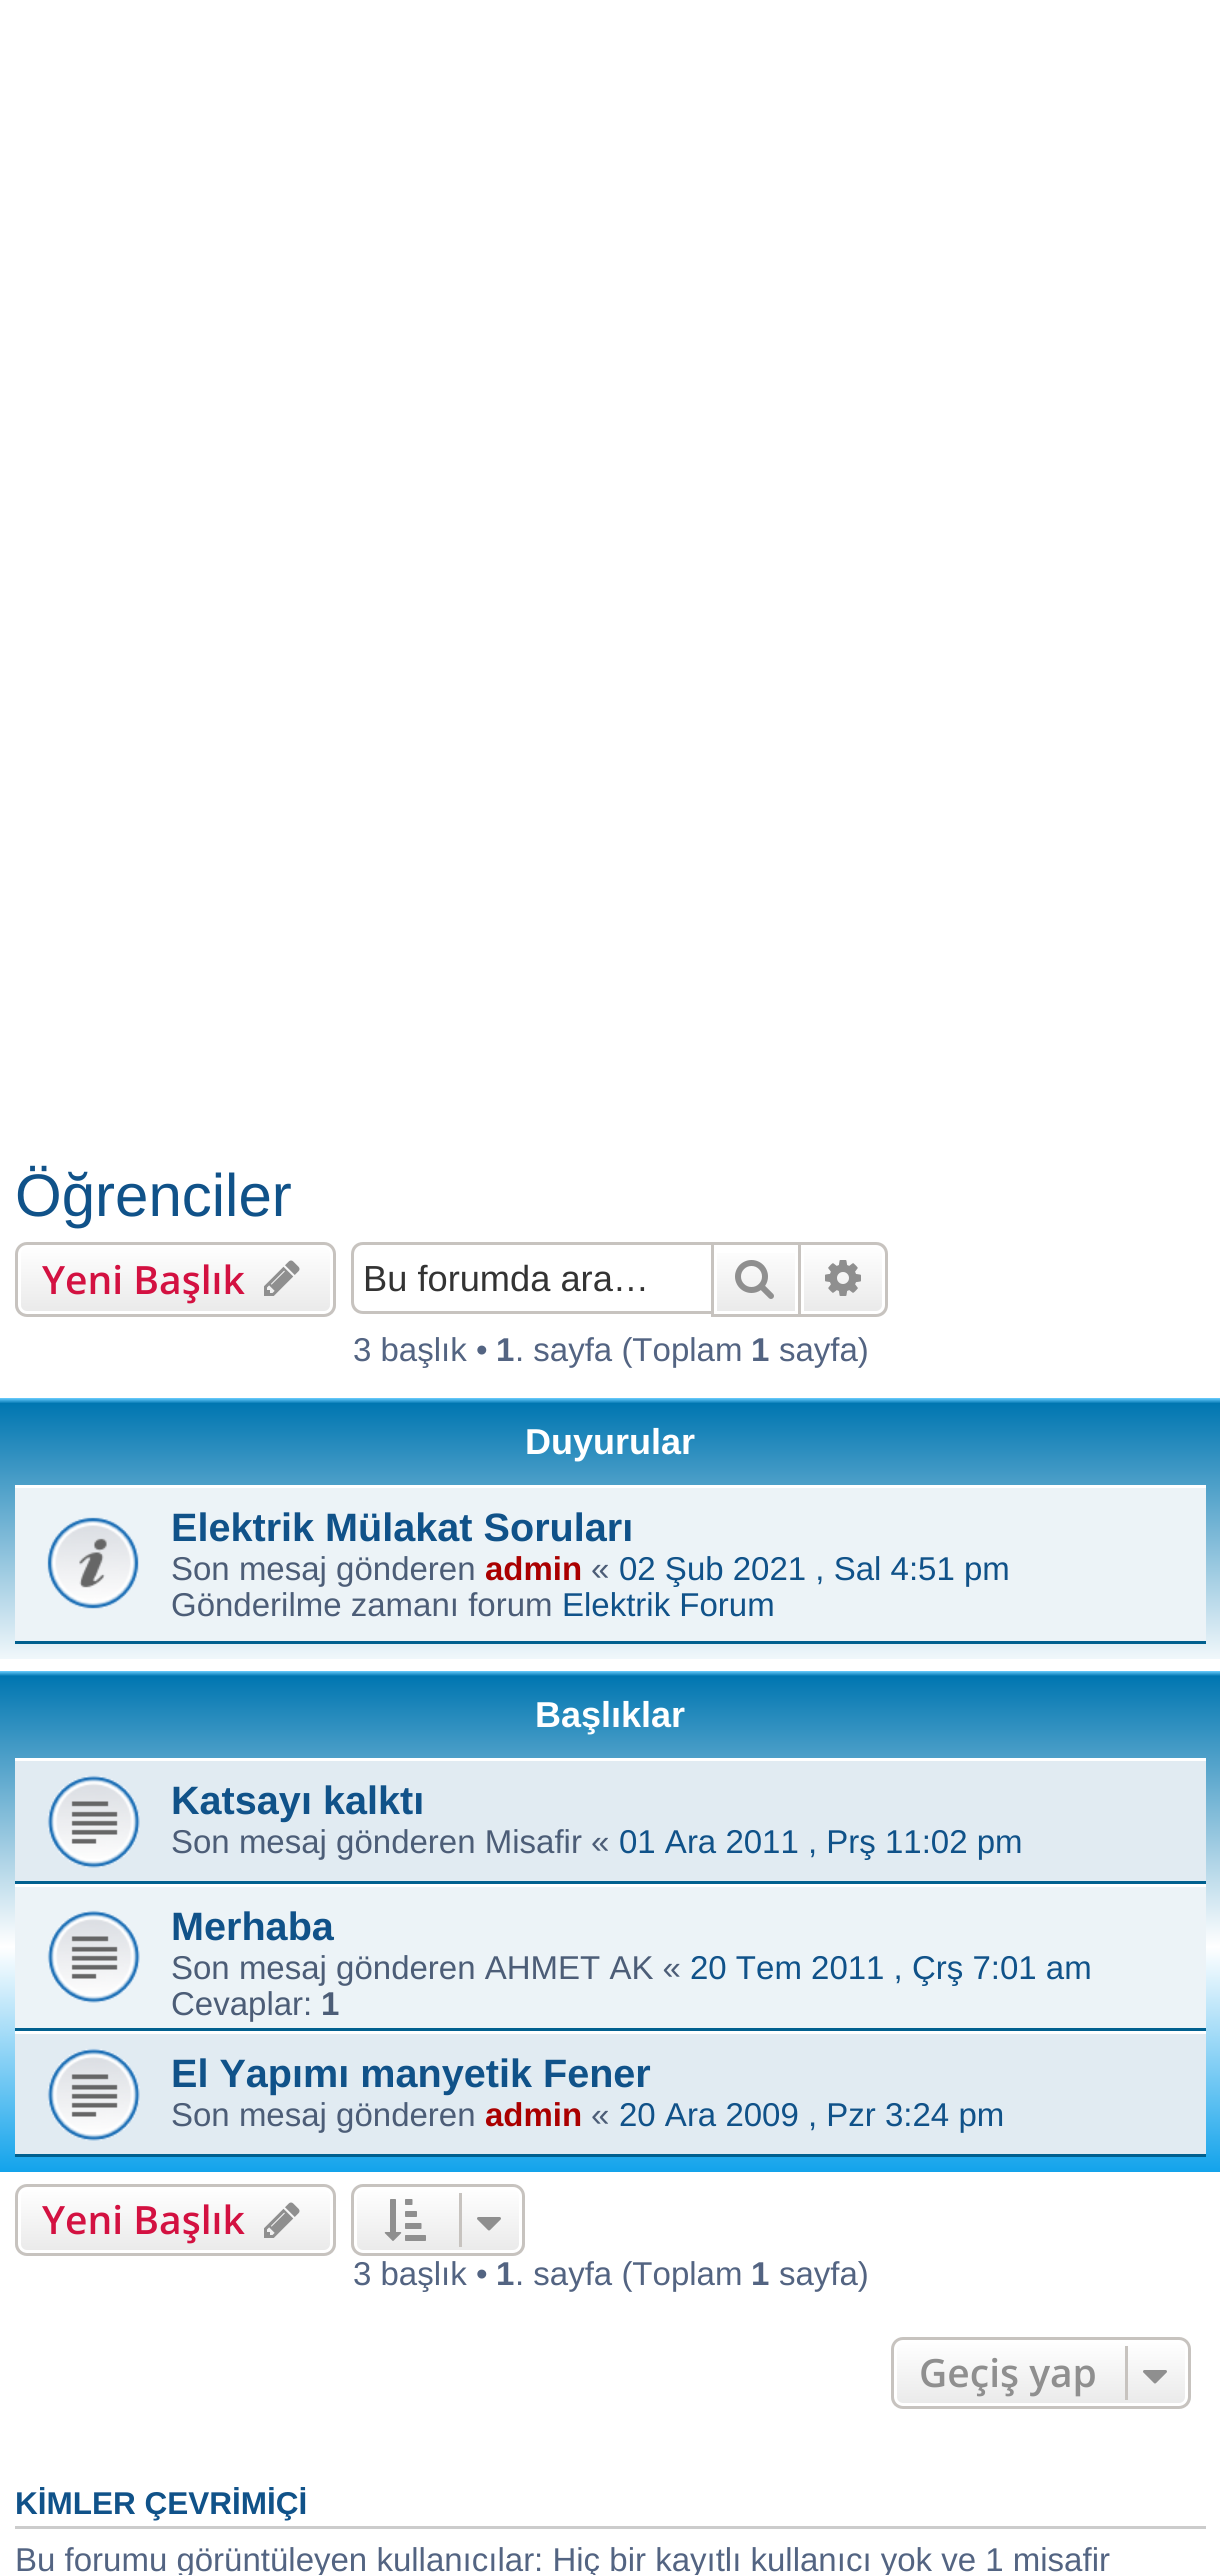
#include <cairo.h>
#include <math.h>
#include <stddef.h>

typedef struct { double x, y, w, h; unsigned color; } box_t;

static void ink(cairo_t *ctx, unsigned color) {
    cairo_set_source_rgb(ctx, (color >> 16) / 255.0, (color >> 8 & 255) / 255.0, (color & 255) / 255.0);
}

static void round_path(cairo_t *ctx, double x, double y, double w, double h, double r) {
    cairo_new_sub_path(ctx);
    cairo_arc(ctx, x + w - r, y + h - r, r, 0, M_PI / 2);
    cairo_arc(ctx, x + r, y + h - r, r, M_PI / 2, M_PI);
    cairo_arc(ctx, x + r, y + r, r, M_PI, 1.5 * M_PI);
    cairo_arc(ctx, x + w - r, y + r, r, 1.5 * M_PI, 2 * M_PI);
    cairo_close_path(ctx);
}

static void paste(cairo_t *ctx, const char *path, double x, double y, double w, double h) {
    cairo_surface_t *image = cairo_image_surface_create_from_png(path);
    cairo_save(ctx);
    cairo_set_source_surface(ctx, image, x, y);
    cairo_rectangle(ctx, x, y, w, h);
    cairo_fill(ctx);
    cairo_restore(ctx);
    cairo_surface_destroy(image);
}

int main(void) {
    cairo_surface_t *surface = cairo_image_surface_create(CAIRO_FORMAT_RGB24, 1220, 2575);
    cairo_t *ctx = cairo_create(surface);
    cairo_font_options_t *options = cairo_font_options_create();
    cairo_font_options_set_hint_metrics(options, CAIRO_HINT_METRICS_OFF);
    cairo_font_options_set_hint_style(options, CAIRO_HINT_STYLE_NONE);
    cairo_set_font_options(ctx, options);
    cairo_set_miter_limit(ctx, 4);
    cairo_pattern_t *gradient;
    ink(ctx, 0xFFFFFF);
    cairo_paint(ctx);
    cairo_select_font_face(ctx, "Liberation Sans", CAIRO_FONT_SLANT_NORMAL, CAIRO_FONT_WEIGHT_NORMAL);
    cairo_set_font_size(ctx, 60);
    ink(ctx, 0x105289);
    cairo_move_to(ctx, 15, 1216);
    cairo_show_text(ctx, "Öğrenciler");
    cairo_save(ctx);
    round_path(ctx, 15, 1242, 321, 75, 12);
    cairo_clip(ctx);
    gradient = cairo_pattern_create_linear(176, 1245, 176, 1314);
    cairo_pattern_add_color_stop_rgba(gradient, 0, 1, 1, 1, 1);
    cairo_pattern_add_color_stop_rgba(gradient, 1, 0.914, 0.914, 0.914, 1);
    cairo_set_source(ctx, gradient);
    cairo_pattern_destroy(gradient);
    cairo_rectangle(ctx, 15, 1245, 321, 69);
    cairo_fill(ctx);
    cairo_restore(ctx);
    round_path(ctx, 19.5, 1246.5, 312, 66, 7.5);
    ink(ctx, 0xFFFFFF);
    cairo_set_line_width(ctx, 3);
    cairo_stroke(ctx);
    round_path(ctx, 16.5, 1243.5, 318, 72, 10.5);
    ink(ctx, 0xC7C3BF);
    cairo_stroke(ctx);
    cairo_select_font_face(ctx, "Open Sans SemiBold", CAIRO_FONT_SLANT_NORMAL, CAIRO_FONT_WEIGHT_NORMAL);
    cairo_set_font_size(ctx, 39);
    ink(ctx, 0xD31141);
    cairo_move_to(ctx, 42, 1294);
    cairo_show_text(ctx, "Yeni Başlık");
    paste(ctx, "media/1.png", 264, 1260, 36, 36);
    ink(ctx, 0xC7C3BF);
    cairo_set_fill_rule(ctx, CAIRO_FILL_RULE_EVEN_ODD);
    cairo_new_path(ctx);
    cairo_move_to(ctx, 363, 1242);
    cairo_line_to(ctx, 711, 1242);
    cairo_line_to(ctx, 711, 1314);
    cairo_line_to(ctx, 363, 1314);
    cairo_curve_to(ctx, 356, 1314, 351, 1309, 351, 1302);
    cairo_line_to(ctx, 351, 1254);
    cairo_curve_to(ctx, 351, 1247, 356, 1242, 363, 1242);
    cairo_close_path(ctx);
    cairo_move_to(ctx, 363, 1245);
    cairo_line_to(ctx, 711, 1245);
    cairo_line_to(ctx, 711, 1311);
    cairo_line_to(ctx, 363, 1311);
    cairo_curve_to(ctx, 358, 1311, 354, 1307, 354, 1302);
    cairo_line_to(ctx, 354, 1254);
    cairo_curve_to(ctx, 354, 1249, 358, 1245, 363, 1245);
    cairo_close_path(ctx);
    cairo_fill(ctx);
    cairo_select_font_face(ctx, "Liberation Sans", CAIRO_FONT_SLANT_NORMAL, CAIRO_FONT_WEIGHT_NORMAL);
    cairo_set_font_size(ctx, 36.25);
    ink(ctx, 0x333333);
    cairo_move_to(ctx, 363, 1291);
    cairo_show_text(ctx, "Bu forumda ara…");
    gradient = cairo_pattern_create_linear(756, 1245, 756, 1314);
    cairo_pattern_add_color_stop_rgba(gradient, 0, 1, 1, 1, 1);
    cairo_pattern_add_color_stop_rgba(gradient, 1, 0.914, 0.914, 0.914, 1);
    cairo_set_source(ctx, gradient);
    cairo_pattern_destroy(gradient);
    cairo_rectangle(ctx, 717, 1253, 78, 58);
    cairo_fill(ctx);
    cairo_rectangle(ctx, 712.5, 1243.5, 87, 72);
    ink(ctx, 0xC7C3BF);
    cairo_stroke(ctx);
    paste(ctx, "media/2.png", 735, 1260, 39, 39);
    gradient = cairo_pattern_create_linear(843, 1245, 843, 1314);
    cairo_pattern_add_color_stop_rgba(gradient, 0, 1, 1, 1, 1);
    cairo_pattern_add_color_stop_rgba(gradient, 1, 0.914, 0.914, 0.914, 1);
    cairo_set_source(ctx, gradient);
    cairo_pattern_destroy(gradient);
    cairo_new_path(ctx);
    cairo_move_to(ctx, 802.5, 1246.5);
    cairo_line_to(ctx, 876, 1246.5);
    cairo_curve_to(ctx, 880, 1246.5, 883.5, 1250, 883.5, 1254);
    cairo_line_to(ctx, 883.5, 1305);
    cairo_curve_to(ctx, 883.5, 1309, 880, 1312.5, 876, 1312.5);
    cairo_line_to(ctx, 802.5, 1312.5);
    cairo_close_path(ctx);
    cairo_fill_preserve(ctx);
    ink(ctx, 0xFFFFFF);
    cairo_stroke(ctx);
    ink(ctx, 0xC7C3BF);
    cairo_new_path(ctx);
    cairo_move_to(ctx, 801, 1242);
    cairo_line_to(ctx, 876, 1242);
    cairo_curve_to(ctx, 883, 1242, 888, 1247, 888, 1254);
    cairo_line_to(ctx, 888, 1305);
    cairo_curve_to(ctx, 888, 1312, 883, 1317, 876, 1317);
    cairo_line_to(ctx, 801, 1317);
    cairo_close_path(ctx);
    cairo_move_to(ctx, 801, 1245);
    cairo_line_to(ctx, 876, 1245);
    cairo_curve_to(ctx, 881, 1245, 885, 1249, 885, 1254);
    cairo_line_to(ctx, 885, 1305);
    cairo_curve_to(ctx, 885, 1310, 881, 1314, 876, 1314);
    cairo_line_to(ctx, 801, 1314);
    cairo_close_path(ctx);
    cairo_fill(ctx);
    paste(ctx, "media/3.png", 825, 1260, 36, 36);
    cairo_set_font_size(ctx, 33);
    ink(ctx, 0x536482);
    cairo_move_to(ctx, 353, 1361);
    cairo_show_text(ctx, "3 başlık •");
    cairo_select_font_face(ctx, "Liberation Sans", CAIRO_FONT_SLANT_NORMAL, CAIRO_FONT_WEIGHT_BOLD);
    cairo_move_to(ctx, 496, 1361);
    cairo_show_text(ctx, "1");
    cairo_select_font_face(ctx, "Liberation Sans", CAIRO_FONT_SLANT_NORMAL, CAIRO_FONT_WEIGHT_NORMAL);
    cairo_move_to(ctx, 515, 1361);
    cairo_show_text(ctx, ". sayfa (Toplam");
    cairo_select_font_face(ctx, "Liberation Sans", CAIRO_FONT_SLANT_NORMAL, CAIRO_FONT_WEIGHT_BOLD);
    cairo_move_to(ctx, 751, 1361);
    cairo_show_text(ctx, "1");
    cairo_select_font_face(ctx, "Liberation Sans", CAIRO_FONT_SLANT_NORMAL, CAIRO_FONT_WEIGHT_NORMAL);
    cairo_move_to(ctx, 779, 1361);
    cairo_show_text(ctx, "sayfa)");
    gradient = cairo_pattern_create_linear(611, 1398, 611, 1674);
    cairo_pattern_add_color_stop_rgba(gradient, 0, 0.416, 0.808, 1, 1);
    cairo_pattern_add_color_stop_rgba(gradient, 0.02, 0, 0.463, 0.694, 1);
    cairo_pattern_add_color_stop_rgba(gradient, 1, 1, 1, 1, 1);
    cairo_pattern_add_color_stop_rgba(gradient, 1, 0.071, 0.639, 0.922, 1);
    cairo_set_source(ctx, gradient);
    cairo_pattern_destroy(gradient);
    cairo_rectangle(ctx, 0, 1398, 1220, 261);
    cairo_fill(ctx);
    cairo_select_font_face(ctx, "Liberation Sans", CAIRO_FONT_SLANT_NORMAL, CAIRO_FONT_WEIGHT_BOLD);
    cairo_set_font_size(ctx, 36);
    ink(ctx, 0xFFFFFF);
    cairo_move_to(ctx, 525, 1454);
    cairo_show_text(ctx, "Duyurular");
    {
        static const box_t items[] = {
            {15, 1488, 1191, 153, 0xECF3F7},
            {15, 1485, 1191, 3, 0xFFFFFF},
            {15, 1641, 1191, 3, 0x00608F},
        };
        for (size_t i = 0; i < sizeof items / sizeof *items; i++) {
            ink(ctx, items[i].color);
            cairo_rectangle(ctx, items[i].x, items[i].y, items[i].w, items[i].h);
            cairo_fill(ctx);
        }
    }
    paste(ctx, "media/4.png", 47, 1517, 92, 92);
    cairo_set_font_size(ctx, 39.6);
    ink(ctx, 0x105289);
    cairo_move_to(ctx, 171, 1541);
    cairo_show_text(ctx, "Elektrik Mülakat Soruları");
    cairo_select_font_face(ctx, "Liberation Sans", CAIRO_FONT_SLANT_NORMAL, CAIRO_FONT_WEIGHT_NORMAL);
    cairo_set_font_size(ctx, 33);
    ink(ctx, 0x4C5D77);
    cairo_move_to(ctx, 171, 1580);
    cairo_show_text(ctx, "Son mesaj gönderen");
    cairo_select_font_face(ctx, "Liberation Sans", CAIRO_FONT_SLANT_NORMAL, CAIRO_FONT_WEIGHT_BOLD);
    ink(ctx, 0xAA0000);
    cairo_move_to(ctx, 485, 1580);
    cairo_show_text(ctx, "admin");
    cairo_select_font_face(ctx, "Liberation Sans", CAIRO_FONT_SLANT_NORMAL, CAIRO_FONT_WEIGHT_NORMAL);
    ink(ctx, 0x4C5D77);
    cairo_move_to(ctx, 591, 1580);
    cairo_show_text(ctx, "«");
    ink(ctx, 0x105289);
    cairo_move_to(ctx, 619, 1580);
    cairo_show_text(ctx, "02 Şub 2021 , Sal 4:51 pm");
    ink(ctx, 0x4C5D77);
    cairo_move_to(ctx, 171, 1616);
    cairo_show_text(ctx, "Gönderilme zamanı forum");
    ink(ctx, 0x105289);
    cairo_move_to(ctx, 562, 1616);
    cairo_show_text(ctx, "Elektrik Forum");
    gradient = cairo_pattern_create_linear(611, 1671, 611, 2172);
    cairo_pattern_add_color_stop_rgba(gradient, 0, 0.416, 0.808, 1, 1);
    cairo_pattern_add_color_stop_rgba(gradient, 0.01, 0, 0.463, 0.694, 1);
    cairo_pattern_add_color_stop_rgba(gradient, 0.55, 1, 1, 1, 1);
    cairo_pattern_add_color_stop_rgba(gradient, 1, 0.071, 0.639, 0.922, 1);
    cairo_set_source(ctx, gradient);
    cairo_pattern_destroy(gradient);
    cairo_rectangle(ctx, 0, 1671, 1220, 501);
    cairo_fill(ctx);
    cairo_select_font_face(ctx, "Liberation Sans", CAIRO_FONT_SLANT_NORMAL, CAIRO_FONT_WEIGHT_BOLD);
    cairo_set_font_size(ctx, 36);
    ink(ctx, 0xFFFFFF);
    cairo_move_to(ctx, 535, 1727);
    cairo_show_text(ctx, "Başlıklar");
    {
        static const box_t items[] = {
            {15, 1761, 1191, 120, 0xE1EBF2},
            {15, 1758, 1191, 3, 0xFFFFFF},
            {15, 1881, 1191, 3, 0x00608F},
        };
        for (size_t i = 0; i < sizeof items / sizeof *items; i++) {
            ink(ctx, items[i].color);
            cairo_rectangle(ctx, items[i].x, items[i].y, items[i].w, items[i].h);
            cairo_fill(ctx);
        }
    }
    paste(ctx, "media/5.png", 47, 1775, 93, 93);
    cairo_set_font_size(ctx, 39.6);
    ink(ctx, 0x105289);
    cairo_move_to(ctx, 171, 1814);
    cairo_show_text(ctx, "Katsayı kalktı");
    cairo_select_font_face(ctx, "Liberation Sans", CAIRO_FONT_SLANT_NORMAL, CAIRO_FONT_WEIGHT_NORMAL);
    cairo_set_font_size(ctx, 33);
    ink(ctx, 0x4C5D77);
    cairo_move_to(ctx, 171, 1853);
    cairo_show_text(ctx, "Son mesaj gönderen Misafir «");
    ink(ctx, 0x105289);
    cairo_move_to(ctx, 619, 1853);
    cairo_show_text(ctx, "01 Ara 2011 , Prş 11:02 pm");
    {
        static const box_t items[] = {
            {15, 1887, 1191, 141, 0xECF3F7},
            {15, 1884, 1191, 3, 0xFFFFFF},
            {15, 2028, 1191, 3, 0x00608F},
        };
        for (size_t i = 0; i < sizeof items / sizeof *items; i++) {
            ink(ctx, items[i].color);
            cairo_rectangle(ctx, items[i].x, items[i].y, items[i].w, items[i].h);
            cairo_fill(ctx);
        }
    }
    paste(ctx, "media/6.png", 47, 1910, 93, 93);
    cairo_select_font_face(ctx, "Liberation Sans", CAIRO_FONT_SLANT_NORMAL, CAIRO_FONT_WEIGHT_BOLD);
    cairo_set_font_size(ctx, 39.6);
    ink(ctx, 0x105289);
    cairo_move_to(ctx, 171, 1940);
    cairo_show_text(ctx, "Merhaba");
    cairo_select_font_face(ctx, "Liberation Sans", CAIRO_FONT_SLANT_NORMAL, CAIRO_FONT_WEIGHT_NORMAL);
    cairo_set_font_size(ctx, 33);
    ink(ctx, 0x4C5D77);
    cairo_move_to(ctx, 171, 1979);
    cairo_show_text(ctx, "Son mesaj gönderen AHMET AK «");
    ink(ctx, 0x105289);
    cairo_move_to(ctx, 690, 1979);
    cairo_show_text(ctx, "20 Tem 2011 , Çrş 7:01 am");
    ink(ctx, 0x4C5D77);
    cairo_move_to(ctx, 171, 2015);
    cairo_show_text(ctx, "Cevaplar:");
    cairo_select_font_face(ctx, "Liberation Sans", CAIRO_FONT_SLANT_NORMAL, CAIRO_FONT_WEIGHT_BOLD);
    cairo_move_to(ctx, 321, 2015);
    cairo_show_text(ctx, "1");
    {
        static const box_t items[] = {
            {15, 2034, 1191, 120, 0xE1EBF2},
            {15, 2031, 1191, 3, 0xFFFFFF},
            {15, 2154, 1191, 3, 0x00608F},
        };
        for (size_t i = 0; i < sizeof items / sizeof *items; i++) {
            ink(ctx, items[i].color);
            cairo_rectangle(ctx, items[i].x, items[i].y, items[i].w, items[i].h);
            cairo_fill(ctx);
        }
    }
    paste(ctx, "media/5.png", 47, 2048, 93, 93);
    cairo_set_font_size(ctx, 39.6);
    ink(ctx, 0x105289);
    cairo_move_to(ctx, 171, 2087);
    cairo_show_text(ctx, "El Yapımı manyetik Fener");
    cairo_select_font_face(ctx, "Liberation Sans", CAIRO_FONT_SLANT_NORMAL, CAIRO_FONT_WEIGHT_NORMAL);
    cairo_set_font_size(ctx, 33);
    ink(ctx, 0x4C5D77);
    cairo_move_to(ctx, 171, 2126);
    cairo_show_text(ctx, "Son mesaj gönderen");
    cairo_select_font_face(ctx, "Liberation Sans", CAIRO_FONT_SLANT_NORMAL, CAIRO_FONT_WEIGHT_BOLD);
    ink(ctx, 0xAA0000);
    cairo_move_to(ctx, 485, 2126);
    cairo_show_text(ctx, "admin");
    cairo_select_font_face(ctx, "Liberation Sans", CAIRO_FONT_SLANT_NORMAL, CAIRO_FONT_WEIGHT_NORMAL);
    ink(ctx, 0x4C5D77);
    cairo_move_to(ctx, 591, 2126);
    cairo_show_text(ctx, "«");
    ink(ctx, 0x105289);
    cairo_move_to(ctx, 619, 2126);
    cairo_show_text(ctx, "20 Ara 2009 , Pzr 3:24 pm");
    cairo_save(ctx);
    cairo_set_fill_rule(ctx, CAIRO_FILL_RULE_WINDING);
    round_path(ctx, 15, 2184, 321, 72, 12);
    cairo_clip(ctx);
    gradient = cairo_pattern_create_linear(176, 2187, 176, 2253);
    cairo_pattern_add_color_stop_rgba(gradient, 0, 1, 1, 1, 1);
    cairo_pattern_add_color_stop_rgba(gradient, 1, 0.914, 0.914, 0.914, 1);
    cairo_set_source(ctx, gradient);
    cairo_pattern_destroy(gradient);
    cairo_rectangle(ctx, 15, 2187, 321, 66);
    cairo_fill(ctx);
    cairo_restore(ctx);
    round_path(ctx, 19.5, 2188.5, 312, 63, 7.5);
    ink(ctx, 0xFFFFFF);
    cairo_stroke(ctx);
    round_path(ctx, 16.5, 2185.5, 318, 69, 10.5);
    ink(ctx, 0xC7C3BF);
    cairo_stroke(ctx);
    cairo_select_font_face(ctx, "Open Sans SemiBold", CAIRO_FONT_SLANT_NORMAL, CAIRO_FONT_WEIGHT_NORMAL);
    cairo_set_font_size(ctx, 39);
    ink(ctx, 0xD31141);
    cairo_move_to(ctx, 42, 2234);
    cairo_show_text(ctx, "Yeni Başlık");
    paste(ctx, "media/7.png", 264, 2202, 36, 36);
    cairo_save(ctx);
    cairo_set_fill_rule(ctx, CAIRO_FILL_RULE_WINDING);
    round_path(ctx, 351, 2184, 174, 72, 12);
    cairo_clip(ctx);
    gradient = cairo_pattern_create_linear(438, 2187, 438, 2253);
    cairo_pattern_add_color_stop_rgba(gradient, 0, 1, 1, 1, 1);
    cairo_pattern_add_color_stop_rgba(gradient, 1, 0.914, 0.914, 0.914, 1);
    cairo_set_source(ctx, gradient);
    cairo_pattern_destroy(gradient);
    cairo_rectangle(ctx, 351, 2187, 174, 66);
    cairo_fill(ctx);
    cairo_restore(ctx);
    round_path(ctx, 355.5, 2188.5, 165, 63, 7.5);
    ink(ctx, 0xFFFFFF);
    cairo_stroke(ctx);
    round_path(ctx, 352.5, 2185.5, 171, 69, 10.5);
    ink(ctx, 0xC7C3BF);
    cairo_stroke(ctx);
    paste(ctx, "media/8.png", 384, 2199, 42, 42);
    cairo_rectangle(ctx, 459, 2193, 3, 54);
    cairo_fill(ctx);
    paste(ctx, "media/9.png", 477, 2217, 24, 14);
    cairo_select_font_face(ctx, "Liberation Sans", CAIRO_FONT_SLANT_NORMAL, CAIRO_FONT_WEIGHT_NORMAL);
    cairo_set_font_size(ctx, 33);
    ink(ctx, 0x536482);
    cairo_move_to(ctx, 353, 2285);
    cairo_show_text(ctx, "3 başlık •");
    cairo_select_font_face(ctx, "Liberation Sans", CAIRO_FONT_SLANT_NORMAL, CAIRO_FONT_WEIGHT_BOLD);
    cairo_move_to(ctx, 496, 2285);
    cairo_show_text(ctx, "1");
    cairo_select_font_face(ctx, "Liberation Sans", CAIRO_FONT_SLANT_NORMAL, CAIRO_FONT_WEIGHT_NORMAL);
    cairo_move_to(ctx, 515, 2285);
    cairo_show_text(ctx, ". sayfa (Toplam");
    cairo_select_font_face(ctx, "Liberation Sans", CAIRO_FONT_SLANT_NORMAL, CAIRO_FONT_WEIGHT_BOLD);
    cairo_move_to(ctx, 751, 2285);
    cairo_show_text(ctx, "1");
    cairo_select_font_face(ctx, "Liberation Sans", CAIRO_FONT_SLANT_NORMAL, CAIRO_FONT_WEIGHT_NORMAL);
    cairo_move_to(ctx, 779, 2285);
    cairo_show_text(ctx, "sayfa)");
    cairo_save(ctx);
    cairo_set_fill_rule(ctx, CAIRO_FILL_RULE_WINDING);
    round_path(ctx, 891, 2337, 300, 72, 12);
    cairo_clip(ctx);
    gradient = cairo_pattern_create_linear(1041, 2340, 1041, 2406);
    cairo_pattern_add_color_stop_rgba(gradient, 0, 1, 1, 1, 1);
    cairo_pattern_add_color_stop_rgba(gradient, 1, 0.914, 0.914, 0.914, 1);
    cairo_set_source(ctx, gradient);
    cairo_pattern_destroy(gradient);
    cairo_rectangle(ctx, 891, 2340, 300, 66);
    cairo_fill(ctx);
    cairo_restore(ctx);
    round_path(ctx, 895.5, 2341.5, 291, 63, 7.5);
    ink(ctx, 0xFFFFFF);
    cairo_stroke(ctx);
    round_path(ctx, 892.5, 2338.5, 297, 69, 10.5);
    ink(ctx, 0xC7C3BF);
    cairo_stroke(ctx);
    cairo_select_font_face(ctx, "Open Sans SemiBold", CAIRO_FONT_SLANT_NORMAL, CAIRO_FONT_WEIGHT_NORMAL);
    cairo_set_font_size(ctx, 39);
    ink(ctx, 0x8F8F8F);
    cairo_move_to(ctx, 919, 2387);
    cairo_show_text(ctx, "Geçiş yap");
    ink(ctx, 0xC7C3BF);
    cairo_rectangle(ctx, 1125, 2346, 3, 54);
    cairo_fill(ctx);
    paste(ctx, "media/9.png", 1143, 2370, 24, 14);
    ink(ctx, 0xCCCCCC);
    cairo_rectangle(ctx, 15, 2526, 1191, 3);
    cairo_fill(ctx);
    cairo_select_font_face(ctx, "Liberation Sans", CAIRO_FONT_SLANT_NORMAL, CAIRO_FONT_WEIGHT_BOLD);
    cairo_set_font_size(ctx, 31.5);
    ink(ctx, 0x105289);
    cairo_move_to(ctx, 15, 2514);
    cairo_show_text(ctx, "KİMLER ÇEVRİMİÇİ");
    cairo_select_font_face(ctx, "Liberation Sans", CAIRO_FONT_SLANT_NORMAL, CAIRO_FONT_WEIGHT_NORMAL);
    cairo_set_font_size(ctx, 33);
    ink(ctx, 0x536482);
    cairo_move_to(ctx, 15, 2571);
    cairo_show_text(ctx, "Bu forumu görüntüleyen kullanıcılar: Hiç bir kayıtlı kullanıcı yok ve 1 misafir");
    cairo_surface_write_to_png(surface, "image.png");
    cairo_font_options_destroy(options);
    cairo_destroy(ctx);
    cairo_surface_destroy(surface);
    return 0;
}
